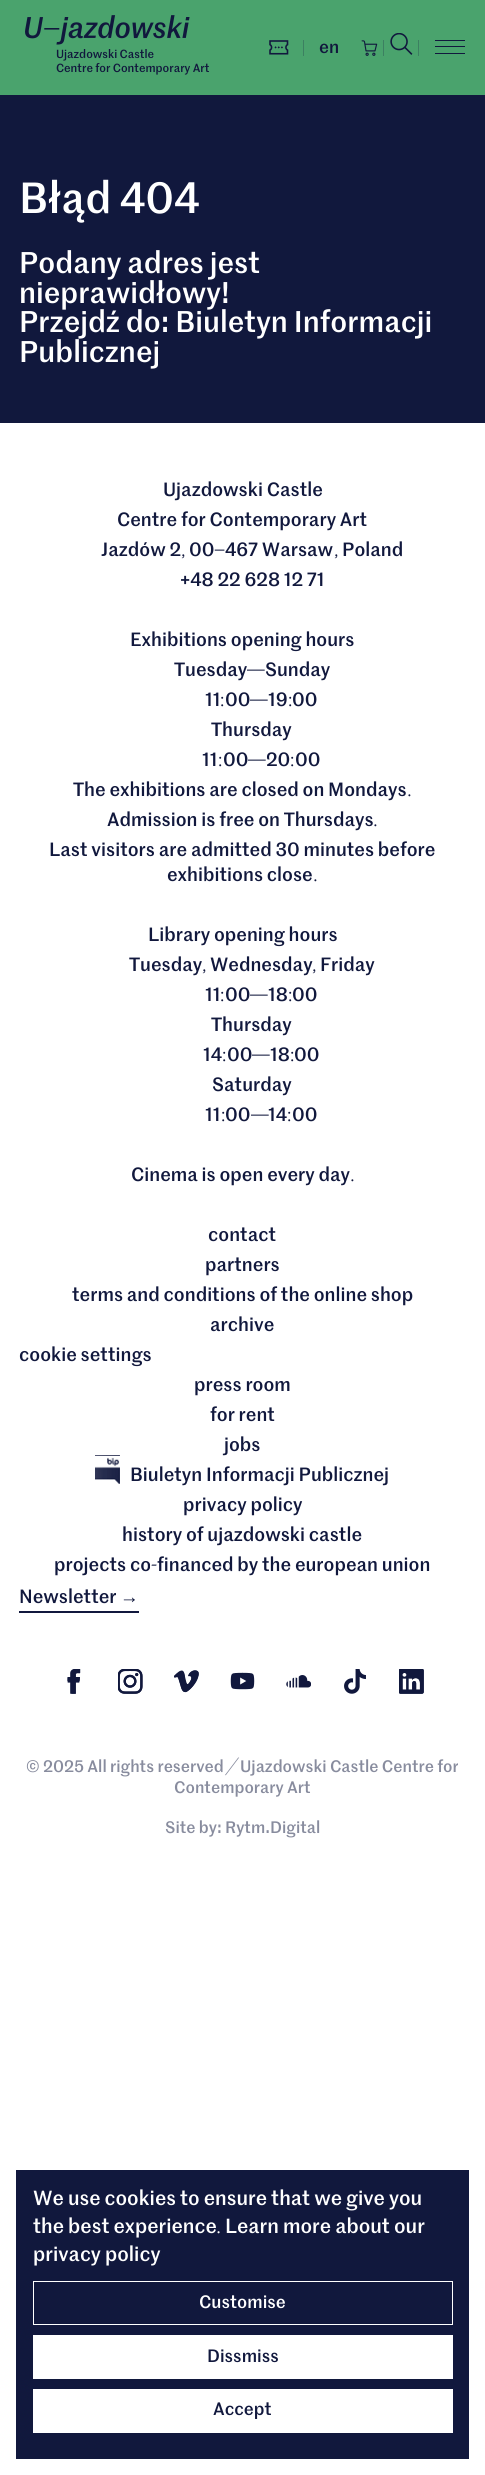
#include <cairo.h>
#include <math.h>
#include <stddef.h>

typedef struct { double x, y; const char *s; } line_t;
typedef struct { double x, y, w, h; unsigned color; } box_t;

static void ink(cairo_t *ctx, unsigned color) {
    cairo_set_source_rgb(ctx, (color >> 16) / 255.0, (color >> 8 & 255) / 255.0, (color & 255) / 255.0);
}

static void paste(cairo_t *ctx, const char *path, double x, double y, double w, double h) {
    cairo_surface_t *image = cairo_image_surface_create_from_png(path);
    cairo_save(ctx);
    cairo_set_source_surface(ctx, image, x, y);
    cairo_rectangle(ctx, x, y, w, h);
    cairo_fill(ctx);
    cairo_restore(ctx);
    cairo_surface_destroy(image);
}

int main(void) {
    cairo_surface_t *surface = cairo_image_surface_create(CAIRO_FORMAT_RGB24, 485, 2475);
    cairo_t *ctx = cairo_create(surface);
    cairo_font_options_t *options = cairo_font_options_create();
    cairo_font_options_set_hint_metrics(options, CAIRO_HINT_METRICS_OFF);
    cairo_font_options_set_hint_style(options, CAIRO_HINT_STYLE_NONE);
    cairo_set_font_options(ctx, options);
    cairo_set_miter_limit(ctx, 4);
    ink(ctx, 0xFFFFFF);
    cairo_paint(ctx);
    ink(ctx, 0x4AA36D);
    cairo_rectangle(ctx, 0, 0, 485, 95);
    cairo_fill(ctx);
    paste(ctx, "media/1.png", 25, 15, 165, 30);
    cairo_select_font_face(ctx, "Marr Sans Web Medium", CAIRO_FONT_SLANT_NORMAL, CAIRO_FONT_WEIGHT_NORMAL);
    cairo_set_font_size(ctx, 11.5);
    ink(ctx, 0x11183D);
    cairo_move_to(ctx, 56, 58);
    cairo_show_text(ctx, "Ujazdowski Castle");
    cairo_move_to(ctx, 56, 72);
    cairo_show_text(ctx, "Centre for Contemporary Art");
    paste(ctx, "media/2.png", 269, 40, 20, 15);
    ink(ctx, 0x3C8061);
    cairo_rectangle(ctx, 303, 40, 1, 16);
    cairo_fill(ctx);
    cairo_set_font_size(ctx, 17.5);
    ink(ctx, 0x11183D);
    cairo_move_to(ctx, 319, 53);
    cairo_show_text(ctx, "en");
    paste(ctx, "media/3.png", 361, 40, 17, 16);
    ink(ctx, 0x3C8061);
    cairo_rectangle(ctx, 383, 40, 1, 16);
    cairo_fill(ctx);
    paste(ctx, "media/4.png", 390, 33, 23, 22);
    {
        static const box_t items[] = {
            {418, 40, 1, 16, 0x3C8061},
            {435, 40, 30, 1, 0x11183D},
            {435, 46, 30, 1, 0x11183D},
            {435, 53, 30, 1, 0x11183D},
            {0, 95, 485, 328, 0x11183D},
        };
        for (size_t i = 0; i < sizeof items / sizeof *items; i++) {
            ink(ctx, items[i].color);
            cairo_rectangle(ctx, items[i].x, items[i].y, items[i].w, items[i].h);
            cairo_fill(ctx);
        }
    }
    cairo_set_font_size(ctx, 42.5);
    ink(ctx, 0xFFFFFF);
    cairo_move_to(ctx, 19, 213);
    cairo_show_text(ctx, "Błąd 404");
    cairo_set_font_size(ctx, 29.25);
    {
        static const line_t items[] = {
            {19, 273, "Podany adres jest"},
            {19, 303, "nieprawidłowy!"},
            {19, 332, "Przejdź do: Biuletyn Informacji"},
            {19, 362, "Publicznej"},
        };
        for (size_t i = 0; i < sizeof items / sizeof *items; i++) {
            cairo_move_to(ctx, items[i].x, items[i].y);
            cairo_show_text(ctx, items[i].s);
        }
    }
    cairo_set_font_size(ctx, 18.75);
    ink(ctx, 0x11183D);
    {
        static const line_t items[] = {
            {163, 496, "Ujazdowski Castle"},
            {117, 526, "Centre for Contemporary Art"},
            {101, 556, "Jazdów 2"},
            {189, 556, "00"},
        };
        for (size_t i = 0; i < sizeof items / sizeof *items; i++) {
            cairo_move_to(ctx, items[i].x, items[i].y);
            cairo_show_text(ctx, items[i].s);
        }
    }
    cairo_select_font_face(ctx, "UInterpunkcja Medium", CAIRO_FONT_SLANT_NORMAL, CAIRO_FONT_WEIGHT_NORMAL);
    cairo_move_to(ctx, 214, 556);
    cairo_show_text(ctx, "–");
    cairo_select_font_face(ctx, "Marr Sans Web Medium", CAIRO_FONT_SLANT_NORMAL, CAIRO_FONT_WEIGHT_NORMAL);
    cairo_move_to(ctx, 225, 556);
    cairo_show_text(ctx, "467 Warsaw");
    cairo_move_to(ctx, 342, 556);
    cairo_show_text(ctx, "Poland");
    cairo_select_font_face(ctx, "UInterpunkcja Medium", CAIRO_FONT_SLANT_NORMAL, CAIRO_FONT_WEIGHT_NORMAL);
    cairo_move_to(ctx, 181, 556);
    cairo_show_text(ctx, ",");
    cairo_move_to(ctx, 334, 556);
    cairo_show_text(ctx, ",");
    cairo_select_font_face(ctx, "Marr Sans Web Medium", CAIRO_FONT_SLANT_NORMAL, CAIRO_FONT_WEIGHT_NORMAL);
    {
        static const line_t items[] = {
            {180, 586, "+48 22 628 12 71"},
            {130, 646, "Exhibitions opening hours"},
            {174, 676, "Tuesday"},
        };
        for (size_t i = 0; i < sizeof items / sizeof *items; i++) {
            cairo_move_to(ctx, items[i].x, items[i].y);
            cairo_show_text(ctx, items[i].s);
        }
    }
    cairo_select_font_face(ctx, "UInterpunkcja Medium", CAIRO_FONT_SLANT_NORMAL, CAIRO_FONT_WEIGHT_NORMAL);
    cairo_move_to(ctx, 247, 676);
    cairo_show_text(ctx, "—");
    cairo_select_font_face(ctx, "Marr Sans Web Medium", CAIRO_FONT_SLANT_NORMAL, CAIRO_FONT_WEIGHT_NORMAL);
    cairo_move_to(ctx, 265, 676);
    cairo_show_text(ctx, "Sunday");
    cairo_move_to(ctx, 205, 706);
    cairo_show_text(ctx, "11");
    cairo_select_font_face(ctx, "UInterpunkcja Medium", CAIRO_FONT_SLANT_NORMAL, CAIRO_FONT_WEIGHT_NORMAL);
    cairo_move_to(ctx, 220, 706);
    cairo_show_text(ctx, ":");
    cairo_select_font_face(ctx, "Marr Sans Web Medium", CAIRO_FONT_SLANT_NORMAL, CAIRO_FONT_WEIGHT_NORMAL);
    cairo_move_to(ctx, 225, 706);
    cairo_show_text(ctx, "00");
    cairo_select_font_face(ctx, "UInterpunkcja Medium", CAIRO_FONT_SLANT_NORMAL, CAIRO_FONT_WEIGHT_NORMAL);
    cairo_move_to(ctx, 250, 706);
    cairo_show_text(ctx, "—");
    cairo_select_font_face(ctx, "Marr Sans Web Medium", CAIRO_FONT_SLANT_NORMAL, CAIRO_FONT_WEIGHT_NORMAL);
    cairo_move_to(ctx, 268, 706);
    cairo_show_text(ctx, "19");
    cairo_select_font_face(ctx, "UInterpunkcja Medium", CAIRO_FONT_SLANT_NORMAL, CAIRO_FONT_WEIGHT_NORMAL);
    cairo_move_to(ctx, 288, 706);
    cairo_show_text(ctx, ":");
    cairo_select_font_face(ctx, "Marr Sans Web Medium", CAIRO_FONT_SLANT_NORMAL, CAIRO_FONT_WEIGHT_NORMAL);
    {
        static const line_t items[] = {
            {292, 706, "00"},
            {211, 736, "Thursday"},
            {202, 766, "11"},
        };
        for (size_t i = 0; i < sizeof items / sizeof *items; i++) {
            cairo_move_to(ctx, items[i].x, items[i].y);
            cairo_show_text(ctx, items[i].s);
        }
    }
    cairo_select_font_face(ctx, "UInterpunkcja Medium", CAIRO_FONT_SLANT_NORMAL, CAIRO_FONT_WEIGHT_NORMAL);
    cairo_move_to(ctx, 218, 766);
    cairo_show_text(ctx, ":");
    cairo_select_font_face(ctx, "Marr Sans Web Medium", CAIRO_FONT_SLANT_NORMAL, CAIRO_FONT_WEIGHT_NORMAL);
    cairo_move_to(ctx, 223, 766);
    cairo_show_text(ctx, "00");
    cairo_select_font_face(ctx, "UInterpunkcja Medium", CAIRO_FONT_SLANT_NORMAL, CAIRO_FONT_WEIGHT_NORMAL);
    cairo_move_to(ctx, 248, 766);
    cairo_show_text(ctx, "—");
    cairo_select_font_face(ctx, "Marr Sans Web Medium", CAIRO_FONT_SLANT_NORMAL, CAIRO_FONT_WEIGHT_NORMAL);
    cairo_move_to(ctx, 266, 766);
    cairo_show_text(ctx, "20");
    cairo_select_font_face(ctx, "UInterpunkcja Medium", CAIRO_FONT_SLANT_NORMAL, CAIRO_FONT_WEIGHT_NORMAL);
    cairo_move_to(ctx, 290, 766);
    cairo_show_text(ctx, ":");
    cairo_select_font_face(ctx, "Marr Sans Web Medium", CAIRO_FONT_SLANT_NORMAL, CAIRO_FONT_WEIGHT_NORMAL);
    cairo_move_to(ctx, 295, 766);
    cairo_show_text(ctx, "00");
    cairo_move_to(ctx, 73, 796);
    cairo_show_text(ctx, "The exhibitions are closed on Mondays");
    cairo_select_font_face(ctx, "UInterpunkcja Medium", CAIRO_FONT_SLANT_NORMAL, CAIRO_FONT_WEIGHT_NORMAL);
    cairo_move_to(ctx, 407, 796);
    cairo_show_text(ctx, ".");
    cairo_select_font_face(ctx, "Marr Sans Web Medium", CAIRO_FONT_SLANT_NORMAL, CAIRO_FONT_WEIGHT_NORMAL);
    cairo_move_to(ctx, 107, 826);
    cairo_show_text(ctx, "Admission is free on Thursdays");
    cairo_select_font_face(ctx, "UInterpunkcja Medium", CAIRO_FONT_SLANT_NORMAL, CAIRO_FONT_WEIGHT_NORMAL);
    cairo_move_to(ctx, 373, 826);
    cairo_show_text(ctx, ".");
    cairo_select_font_face(ctx, "Marr Sans Web Medium", CAIRO_FONT_SLANT_NORMAL, CAIRO_FONT_WEIGHT_NORMAL);
    cairo_move_to(ctx, 49, 856);
    cairo_show_text(ctx, "Last visitors are admitted 30 minutes before");
    cairo_move_to(ctx, 167, 881);
    cairo_show_text(ctx, "exhibitions close");
    cairo_select_font_face(ctx, "UInterpunkcja Medium", CAIRO_FONT_SLANT_NORMAL, CAIRO_FONT_WEIGHT_NORMAL);
    cairo_move_to(ctx, 313, 881);
    cairo_show_text(ctx, ".");
    cairo_select_font_face(ctx, "Marr Sans Web Medium", CAIRO_FONT_SLANT_NORMAL, CAIRO_FONT_WEIGHT_NORMAL);
    cairo_move_to(ctx, 148, 941);
    cairo_show_text(ctx, "Library opening hours");
    cairo_move_to(ctx, 129, 971);
    cairo_show_text(ctx, "Tuesday");
    cairo_select_font_face(ctx, "UInterpunkcja Medium", CAIRO_FONT_SLANT_NORMAL, CAIRO_FONT_WEIGHT_NORMAL);
    cairo_move_to(ctx, 202, 971);
    cairo_show_text(ctx, ",");
    cairo_select_font_face(ctx, "Marr Sans Web Medium", CAIRO_FONT_SLANT_NORMAL, CAIRO_FONT_WEIGHT_NORMAL);
    cairo_move_to(ctx, 210, 971);
    cairo_show_text(ctx, "Wednesday");
    cairo_select_font_face(ctx, "UInterpunkcja Medium", CAIRO_FONT_SLANT_NORMAL, CAIRO_FONT_WEIGHT_NORMAL);
    cairo_move_to(ctx, 312, 971);
    cairo_show_text(ctx, ",");
    cairo_select_font_face(ctx, "Marr Sans Web Medium", CAIRO_FONT_SLANT_NORMAL, CAIRO_FONT_WEIGHT_NORMAL);
    cairo_move_to(ctx, 320, 971);
    cairo_show_text(ctx, "Friday");
    cairo_move_to(ctx, 205, 1001);
    cairo_show_text(ctx, "11");
    cairo_select_font_face(ctx, "UInterpunkcja Medium", CAIRO_FONT_SLANT_NORMAL, CAIRO_FONT_WEIGHT_NORMAL);
    cairo_move_to(ctx, 220, 1001);
    cairo_show_text(ctx, ":");
    cairo_select_font_face(ctx, "Marr Sans Web Medium", CAIRO_FONT_SLANT_NORMAL, CAIRO_FONT_WEIGHT_NORMAL);
    cairo_move_to(ctx, 225, 1001);
    cairo_show_text(ctx, "00");
    cairo_select_font_face(ctx, "UInterpunkcja Medium", CAIRO_FONT_SLANT_NORMAL, CAIRO_FONT_WEIGHT_NORMAL);
    cairo_move_to(ctx, 250, 1001);
    cairo_show_text(ctx, "—");
    cairo_select_font_face(ctx, "Marr Sans Web Medium", CAIRO_FONT_SLANT_NORMAL, CAIRO_FONT_WEIGHT_NORMAL);
    cairo_move_to(ctx, 268, 1001);
    cairo_show_text(ctx, "18");
    cairo_select_font_face(ctx, "UInterpunkcja Medium", CAIRO_FONT_SLANT_NORMAL, CAIRO_FONT_WEIGHT_NORMAL);
    cairo_move_to(ctx, 288, 1001);
    cairo_show_text(ctx, ":");
    cairo_select_font_face(ctx, "Marr Sans Web Medium", CAIRO_FONT_SLANT_NORMAL, CAIRO_FONT_WEIGHT_NORMAL);
    {
        static const line_t items[] = {
            {292, 1001, "00"},
            {211, 1031, "Thursday"},
            {203, 1061, "14"},
        };
        for (size_t i = 0; i < sizeof items / sizeof *items; i++) {
            cairo_move_to(ctx, items[i].x, items[i].y);
            cairo_show_text(ctx, items[i].s);
        }
    }
    cairo_select_font_face(ctx, "UInterpunkcja Medium", CAIRO_FONT_SLANT_NORMAL, CAIRO_FONT_WEIGHT_NORMAL);
    cairo_move_to(ctx, 222, 1061);
    cairo_show_text(ctx, ":");
    cairo_select_font_face(ctx, "Marr Sans Web Medium", CAIRO_FONT_SLANT_NORMAL, CAIRO_FONT_WEIGHT_NORMAL);
    cairo_move_to(ctx, 227, 1061);
    cairo_show_text(ctx, "00");
    cairo_select_font_face(ctx, "UInterpunkcja Medium", CAIRO_FONT_SLANT_NORMAL, CAIRO_FONT_WEIGHT_NORMAL);
    cairo_move_to(ctx, 252, 1061);
    cairo_show_text(ctx, "—");
    cairo_select_font_face(ctx, "Marr Sans Web Medium", CAIRO_FONT_SLANT_NORMAL, CAIRO_FONT_WEIGHT_NORMAL);
    cairo_move_to(ctx, 270, 1061);
    cairo_show_text(ctx, "18");
    cairo_select_font_face(ctx, "UInterpunkcja Medium", CAIRO_FONT_SLANT_NORMAL, CAIRO_FONT_WEIGHT_NORMAL);
    cairo_move_to(ctx, 290, 1061);
    cairo_show_text(ctx, ":");
    cairo_select_font_face(ctx, "Marr Sans Web Medium", CAIRO_FONT_SLANT_NORMAL, CAIRO_FONT_WEIGHT_NORMAL);
    {
        static const line_t items[] = {
            {294, 1061, "00"},
            {212, 1091, "Saturday"},
            {205, 1121, "11"},
        };
        for (size_t i = 0; i < sizeof items / sizeof *items; i++) {
            cairo_move_to(ctx, items[i].x, items[i].y);
            cairo_show_text(ctx, items[i].s);
        }
    }
    cairo_select_font_face(ctx, "UInterpunkcja Medium", CAIRO_FONT_SLANT_NORMAL, CAIRO_FONT_WEIGHT_NORMAL);
    cairo_move_to(ctx, 221, 1121);
    cairo_show_text(ctx, ":");
    cairo_select_font_face(ctx, "Marr Sans Web Medium", CAIRO_FONT_SLANT_NORMAL, CAIRO_FONT_WEIGHT_NORMAL);
    cairo_move_to(ctx, 225, 1121);
    cairo_show_text(ctx, "00");
    cairo_select_font_face(ctx, "UInterpunkcja Medium", CAIRO_FONT_SLANT_NORMAL, CAIRO_FONT_WEIGHT_NORMAL);
    cairo_move_to(ctx, 251, 1121);
    cairo_show_text(ctx, "—");
    cairo_select_font_face(ctx, "Marr Sans Web Medium", CAIRO_FONT_SLANT_NORMAL, CAIRO_FONT_WEIGHT_NORMAL);
    cairo_move_to(ctx, 268, 1121);
    cairo_show_text(ctx, "14");
    cairo_select_font_face(ctx, "UInterpunkcja Medium", CAIRO_FONT_SLANT_NORMAL, CAIRO_FONT_WEIGHT_NORMAL);
    cairo_move_to(ctx, 287, 1121);
    cairo_show_text(ctx, ":");
    cairo_select_font_face(ctx, "Marr Sans Web Medium", CAIRO_FONT_SLANT_NORMAL, CAIRO_FONT_WEIGHT_NORMAL);
    cairo_move_to(ctx, 292, 1121);
    cairo_show_text(ctx, "00");
    cairo_move_to(ctx, 131, 1181);
    cairo_show_text(ctx, "Cinema is open every day");
    cairo_select_font_face(ctx, "UInterpunkcja Medium", CAIRO_FONT_SLANT_NORMAL, CAIRO_FONT_WEIGHT_NORMAL);
    cairo_move_to(ctx, 350, 1181);
    cairo_show_text(ctx, ".");
    cairo_select_font_face(ctx, "Marr Sans Web Medium", CAIRO_FONT_SLANT_NORMAL, CAIRO_FONT_WEIGHT_NORMAL);
    {
        static const line_t items[] = {
            {208, 1241, "contact"},
            {205, 1271, "partners"},
            {72, 1301, "terms and conditions of the online shop"},
            {210, 1331, "archive"},
            {19, 1361, "cookie settings"},
            {194, 1391, "press room"},
            {210, 1421, "for rent"},
            {224, 1451, "jobs"},
        };
        for (size_t i = 0; i < sizeof items / sizeof *items; i++) {
            cairo_move_to(ctx, items[i].x, items[i].y);
            cairo_show_text(ctx, items[i].s);
        }
    }
    paste(ctx, "media/5.png", 95, 1455, 25, 29);
    {
        static const line_t items[] = {
            {130, 1481, "Biuletyn Informacji Publicznej"},
            {183, 1511, "privacy policy"},
            {122, 1541, "history of ujazdowski castle"},
            {54, 1571, "projects co"},
        };
        for (size_t i = 0; i < sizeof items / sizeof *items; i++) {
            cairo_move_to(ctx, items[i].x, items[i].y);
            cairo_show_text(ctx, items[i].s);
        }
    }
    cairo_select_font_face(ctx, "UInterpunkcja Medium", CAIRO_FONT_SLANT_NORMAL, CAIRO_FONT_WEIGHT_NORMAL);
    cairo_move_to(ctx, 151, 1571);
    cairo_show_text(ctx, "-");
    cairo_select_font_face(ctx, "Marr Sans Web Medium", CAIRO_FONT_SLANT_NORMAL, CAIRO_FONT_WEIGHT_NORMAL);
    cairo_move_to(ctx, 157, 1571);
    cairo_show_text(ctx, "financed by the european union");
    cairo_save(ctx);
    cairo_rectangle(ctx, 19, 1583, 120, 30);
    cairo_clip(ctx);
    cairo_set_fill_rule(ctx, CAIRO_FILL_RULE_EVEN_ODD);
    cairo_new_path(ctx);
    cairo_move_to(ctx, -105, 1459);
    cairo_line_to(ctx, 262, 1459);
    cairo_line_to(ctx, 262, 1736);
    cairo_line_to(ctx, -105, 1736);
    cairo_close_path(ctx);
    cairo_move_to(ctx, 19, 1579);
    cairo_line_to(ctx, 139, 1579);
    cairo_curve_to(ctx, 139, 1579, 140, 1579, 140, 1580);
    cairo_line_to(ctx, 140, 1610);
    cairo_curve_to(ctx, 140, 1611, 139, 1611, 139, 1611);
    cairo_line_to(ctx, 19, 1611);
    cairo_curve_to(ctx, 18, 1611, 18, 1611, 18, 1610);
    cairo_line_to(ctx, 18, 1580);
    cairo_curve_to(ctx, 18, 1579, 18, 1579, 19, 1579);
    cairo_close_path(ctx);
    cairo_fill(ctx);
    cairo_restore(ctx);
    cairo_move_to(ctx, 19, 1603);
    cairo_show_text(ctx, "Newsletter");
    cairo_select_font_face(ctx, "Liberation Serif", CAIRO_FONT_SLANT_NORMAL, CAIRO_FONT_WEIGHT_NORMAL);
    cairo_move_to(ctx, 120, 1603);
    cairo_show_text(ctx, "→");
    paste(ctx, "media/6.png", 67, 1669, 14, 25);
    paste(ctx, "media/7.png", 67, 1669, 14, 25);
    paste(ctx, "media/8.png", 118, 1669, 25, 25);
    paste(ctx, "media/9.png", 118, 1669, 25, 25);
    paste(ctx, "media/10.png", 174, 1670, 25, 22);
    paste(ctx, "media/11.png", 174, 1670, 25, 23);
    paste(ctx, "media/12.png", 230, 1672, 25, 18);
    paste(ctx, "media/13.png", 286, 1675, 25, 13);
    paste(ctx, "media/14.png", 344, 1669, 22, 25);
    paste(ctx, "media/15.png", 399, 1669, 25, 25);
    paste(ctx, "media/16.png", 399, 1669, 25, 25);
    cairo_select_font_face(ctx, "Marr Sans Web Medium", CAIRO_FONT_SLANT_NORMAL, CAIRO_FONT_WEIGHT_NORMAL);
    cairo_set_font_size(ctx, 16.25);
    ink(ctx, 0x888C9E);
    cairo_move_to(ctx, 26, 1772);
    cairo_show_text(ctx, "© 2025 All rights reserved");
    cairo_select_font_face(ctx, "UInterpunkcja Medium", CAIRO_FONT_SLANT_NORMAL, CAIRO_FONT_WEIGHT_NORMAL);
    cairo_move_to(ctx, 228, 1772);
    cairo_show_text(ctx, "/");
    cairo_select_font_face(ctx, "Marr Sans Web Medium", CAIRO_FONT_SLANT_NORMAL, CAIRO_FONT_WEIGHT_NORMAL);
    {
        static const line_t items[] = {
            {240, 1772, "Ujazdowski Castle Centre for"},
            {174, 1793, "Contemporary Art"},
            {165, 1833, "Site by: Rytm.Digital"},
        };
        for (size_t i = 0; i < sizeof items / sizeof *items; i++) {
            cairo_move_to(ctx, items[i].x, items[i].y);
            cairo_show_text(ctx, items[i].s);
        }
    }
    ink(ctx, 0x11183D);
    cairo_rectangle(ctx, 16, 2170, 453, 289);
    cairo_fill(ctx);
    cairo_set_font_size(ctx, 20);
    ink(ctx, 0xFFFFFF);
    cairo_move_to(ctx, 33, 2205);
    cairo_show_text(ctx, "We use cookies to ensure that we give you");
    cairo_move_to(ctx, 33, 2233);
    cairo_show_text(ctx, "the best experience");
    cairo_select_font_face(ctx, "UInterpunkcja Medium", CAIRO_FONT_SLANT_NORMAL, CAIRO_FONT_WEIGHT_NORMAL);
    cairo_move_to(ctx, 216, 2233);
    cairo_show_text(ctx, ".");
    cairo_select_font_face(ctx, "Marr Sans Web Medium", CAIRO_FONT_SLANT_NORMAL, CAIRO_FONT_WEIGHT_NORMAL);
    cairo_move_to(ctx, 225, 2233);
    cairo_show_text(ctx, "Learn more about our");
    cairo_move_to(ctx, 33, 2261);
    cairo_show_text(ctx, "privacy policy");
    cairo_rectangle(ctx, 33.5, 2281.5, 419, 43);
    cairo_set_line_width(ctx, 1);
    cairo_stroke(ctx);
    cairo_set_font_size(ctx, 17.5);
    cairo_move_to(ctx, 199, 2308);
    cairo_show_text(ctx, "Customise");
    cairo_rectangle(ctx, 33, 2335, 420, 44);
    cairo_fill(ctx);
    ink(ctx, 0x11183D);
    cairo_move_to(ctx, 207, 2362);
    cairo_show_text(ctx, "Dissmiss");
    ink(ctx, 0xFFFFFF);
    cairo_rectangle(ctx, 33, 2389, 420, 44);
    cairo_fill(ctx);
    ink(ctx, 0x11183D);
    cairo_move_to(ctx, 213, 2415);
    cairo_show_text(ctx, "Accept");
    cairo_surface_write_to_png(surface, "image.png");
    cairo_font_options_destroy(options);
    cairo_destroy(ctx);
    cairo_surface_destroy(surface);
    return 0;
}
